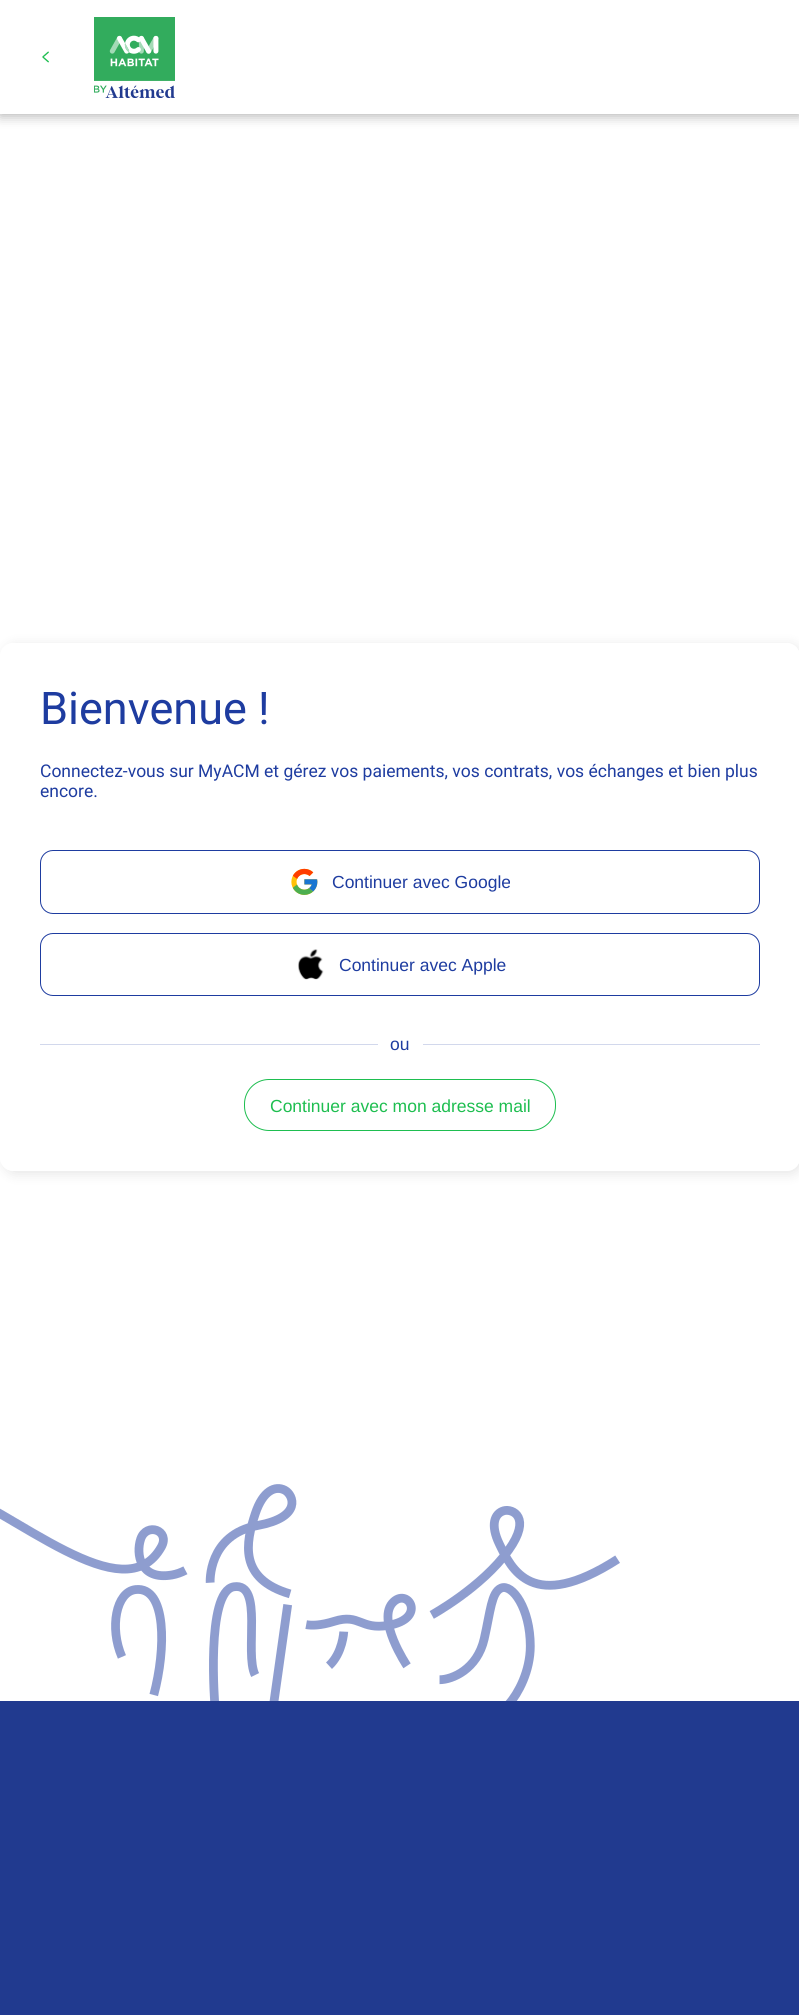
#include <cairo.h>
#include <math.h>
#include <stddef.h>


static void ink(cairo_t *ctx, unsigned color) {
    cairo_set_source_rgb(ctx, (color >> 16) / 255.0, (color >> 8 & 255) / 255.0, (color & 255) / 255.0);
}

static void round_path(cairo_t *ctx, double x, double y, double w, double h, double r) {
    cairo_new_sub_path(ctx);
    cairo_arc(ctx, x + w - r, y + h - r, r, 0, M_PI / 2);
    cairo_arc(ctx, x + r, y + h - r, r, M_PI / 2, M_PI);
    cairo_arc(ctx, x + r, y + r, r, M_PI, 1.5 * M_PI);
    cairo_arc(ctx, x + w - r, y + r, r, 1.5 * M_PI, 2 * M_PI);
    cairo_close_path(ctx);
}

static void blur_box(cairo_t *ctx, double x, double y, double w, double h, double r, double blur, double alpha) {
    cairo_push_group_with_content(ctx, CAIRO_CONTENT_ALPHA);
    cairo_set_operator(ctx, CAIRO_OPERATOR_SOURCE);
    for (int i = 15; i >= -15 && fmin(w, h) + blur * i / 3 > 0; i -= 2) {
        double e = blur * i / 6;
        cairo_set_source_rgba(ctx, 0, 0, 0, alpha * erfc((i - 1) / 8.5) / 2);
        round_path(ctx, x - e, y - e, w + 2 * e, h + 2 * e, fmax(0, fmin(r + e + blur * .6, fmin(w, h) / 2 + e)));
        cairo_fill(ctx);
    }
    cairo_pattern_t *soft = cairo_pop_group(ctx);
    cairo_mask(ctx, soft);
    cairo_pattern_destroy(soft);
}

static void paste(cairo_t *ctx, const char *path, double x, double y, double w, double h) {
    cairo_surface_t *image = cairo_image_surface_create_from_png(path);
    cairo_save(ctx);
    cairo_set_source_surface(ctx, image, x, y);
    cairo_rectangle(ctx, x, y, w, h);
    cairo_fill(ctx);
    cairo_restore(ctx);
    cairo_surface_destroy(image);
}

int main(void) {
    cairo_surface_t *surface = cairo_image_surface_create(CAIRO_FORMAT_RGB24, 799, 2015);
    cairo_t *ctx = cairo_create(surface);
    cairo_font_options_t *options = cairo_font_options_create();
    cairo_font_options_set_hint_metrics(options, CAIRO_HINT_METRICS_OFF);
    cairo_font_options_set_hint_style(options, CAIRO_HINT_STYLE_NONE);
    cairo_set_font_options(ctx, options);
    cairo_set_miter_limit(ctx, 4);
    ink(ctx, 0xFFFFFF);
    cairo_paint(ctx);
    ink(ctx, 0x000000);
    blur_box(ctx, 0, 3, 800, 113, 0, 6, 0.3);
    ink(ctx, 0xFFFFFF);
    cairo_rectangle(ctx, 0, 0, 799, 114);
    cairo_fill(ctx);
    paste(ctx, "media/1.png", 42, 51, 7, 12);
    paste(ctx, "media/2.png", 94, 17, 81, 81);
    cairo_save(ctx);
    cairo_set_fill_rule(ctx, CAIRO_FILL_RULE_EVEN_ODD);
    cairo_new_path(ctx);
    cairo_move_to(ctx, 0, 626);
    cairo_line_to(ctx, 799, 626);
    cairo_line_to(ctx, 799, 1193);
    cairo_line_to(ctx, 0, 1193);
    cairo_close_path(ctx);
    cairo_move_to(ctx, 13, 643);
    cairo_line_to(ctx, 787, 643);
    cairo_curve_to(ctx, 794, 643, 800, 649, 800, 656);
    cairo_line_to(ctx, 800, 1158);
    cairo_curve_to(ctx, 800, 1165, 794, 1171, 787, 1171);
    cairo_line_to(ctx, 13, 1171);
    cairo_curve_to(ctx, 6, 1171, 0, 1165, 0, 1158);
    cairo_line_to(ctx, 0, 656);
    cairo_curve_to(ctx, 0, 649, 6, 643, 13, 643);
    cairo_close_path(ctx);
    cairo_clip(ctx);
    ink(ctx, 0x000000);
    blur_box(ctx, 3, 645, 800, 529, 13, 6, 0.1);
    cairo_restore(ctx);
    cairo_select_font_face(ctx, "Roboto", CAIRO_FONT_SLANT_NORMAL, CAIRO_FONT_WEIGHT_NORMAL);
    cairo_set_font_size(ctx, 45);
    ink(ctx, 0x1E3CA0);
    cairo_move_to(ctx, 40, 724);
    cairo_show_text(ctx, "Bienvenue !");
    cairo_set_font_size(ctx, 17.5);
    cairo_move_to(ctx, 40, 777);
    cairo_show_text(ctx, "Connectez-vous sur MyACM et gérez vos paiements, vos contrats, vos échanges et bien plus");
    cairo_move_to(ctx, 40, 797);
    cairo_show_text(ctx, "encore.");
    round_path(ctx, 40.5, 850.5, 719, 63, 12.5);
    cairo_set_line_width(ctx, 1);
    cairo_stroke(ctx);
    paste(ctx, "media/3.png", 291, 868, 27, 27);
    cairo_select_font_face(ctx, "Liberation Sans", CAIRO_FONT_SLANT_NORMAL, CAIRO_FONT_WEIGHT_NORMAL);
    cairo_move_to(ctx, 332, 888);
    cairo_show_text(ctx, "Continuer avec Google");
    round_path(ctx, 40.5, 933.5, 719, 62, 12.5);
    cairo_stroke(ctx);
    paste(ctx, "media/4.png", 298, 949, 26, 31);
    cairo_move_to(ctx, 339, 971);
    cairo_show_text(ctx, "Continuer avec Apple");
    ink(ctx, 0xD2D8EC);
    cairo_rectangle(ctx, 40, 1044, 338, 1);
    cairo_fill(ctx);
    ink(ctx, 0x1E3CA0);
    cairo_move_to(ctx, 390, 1050);
    cairo_show_text(ctx, "ou");
    ink(ctx, 0xD2D8EC);
    cairo_rectangle(ctx, 423, 1044, 337, 1);
    cairo_fill(ctx);
    round_path(ctx, 244.5, 1079.5, 311, 51, 24.5);
    ink(ctx, 0x1EBE50);
    cairo_stroke(ctx);
    cairo_move_to(ctx, 270, 1112);
    cairo_show_text(ctx, "Continuer avec mon adresse mail");
    paste(ctx, "media/5.png", 0, 1484, 620, 217);
    ink(ctx, 0x213A8F);
    cairo_rectangle(ctx, 0, 1701, 799, 314);
    cairo_fill(ctx);
    cairo_surface_write_to_png(surface, "image.png");
    cairo_font_options_destroy(options);
    cairo_destroy(ctx);
    cairo_surface_destroy(surface);
    return 0;
}
